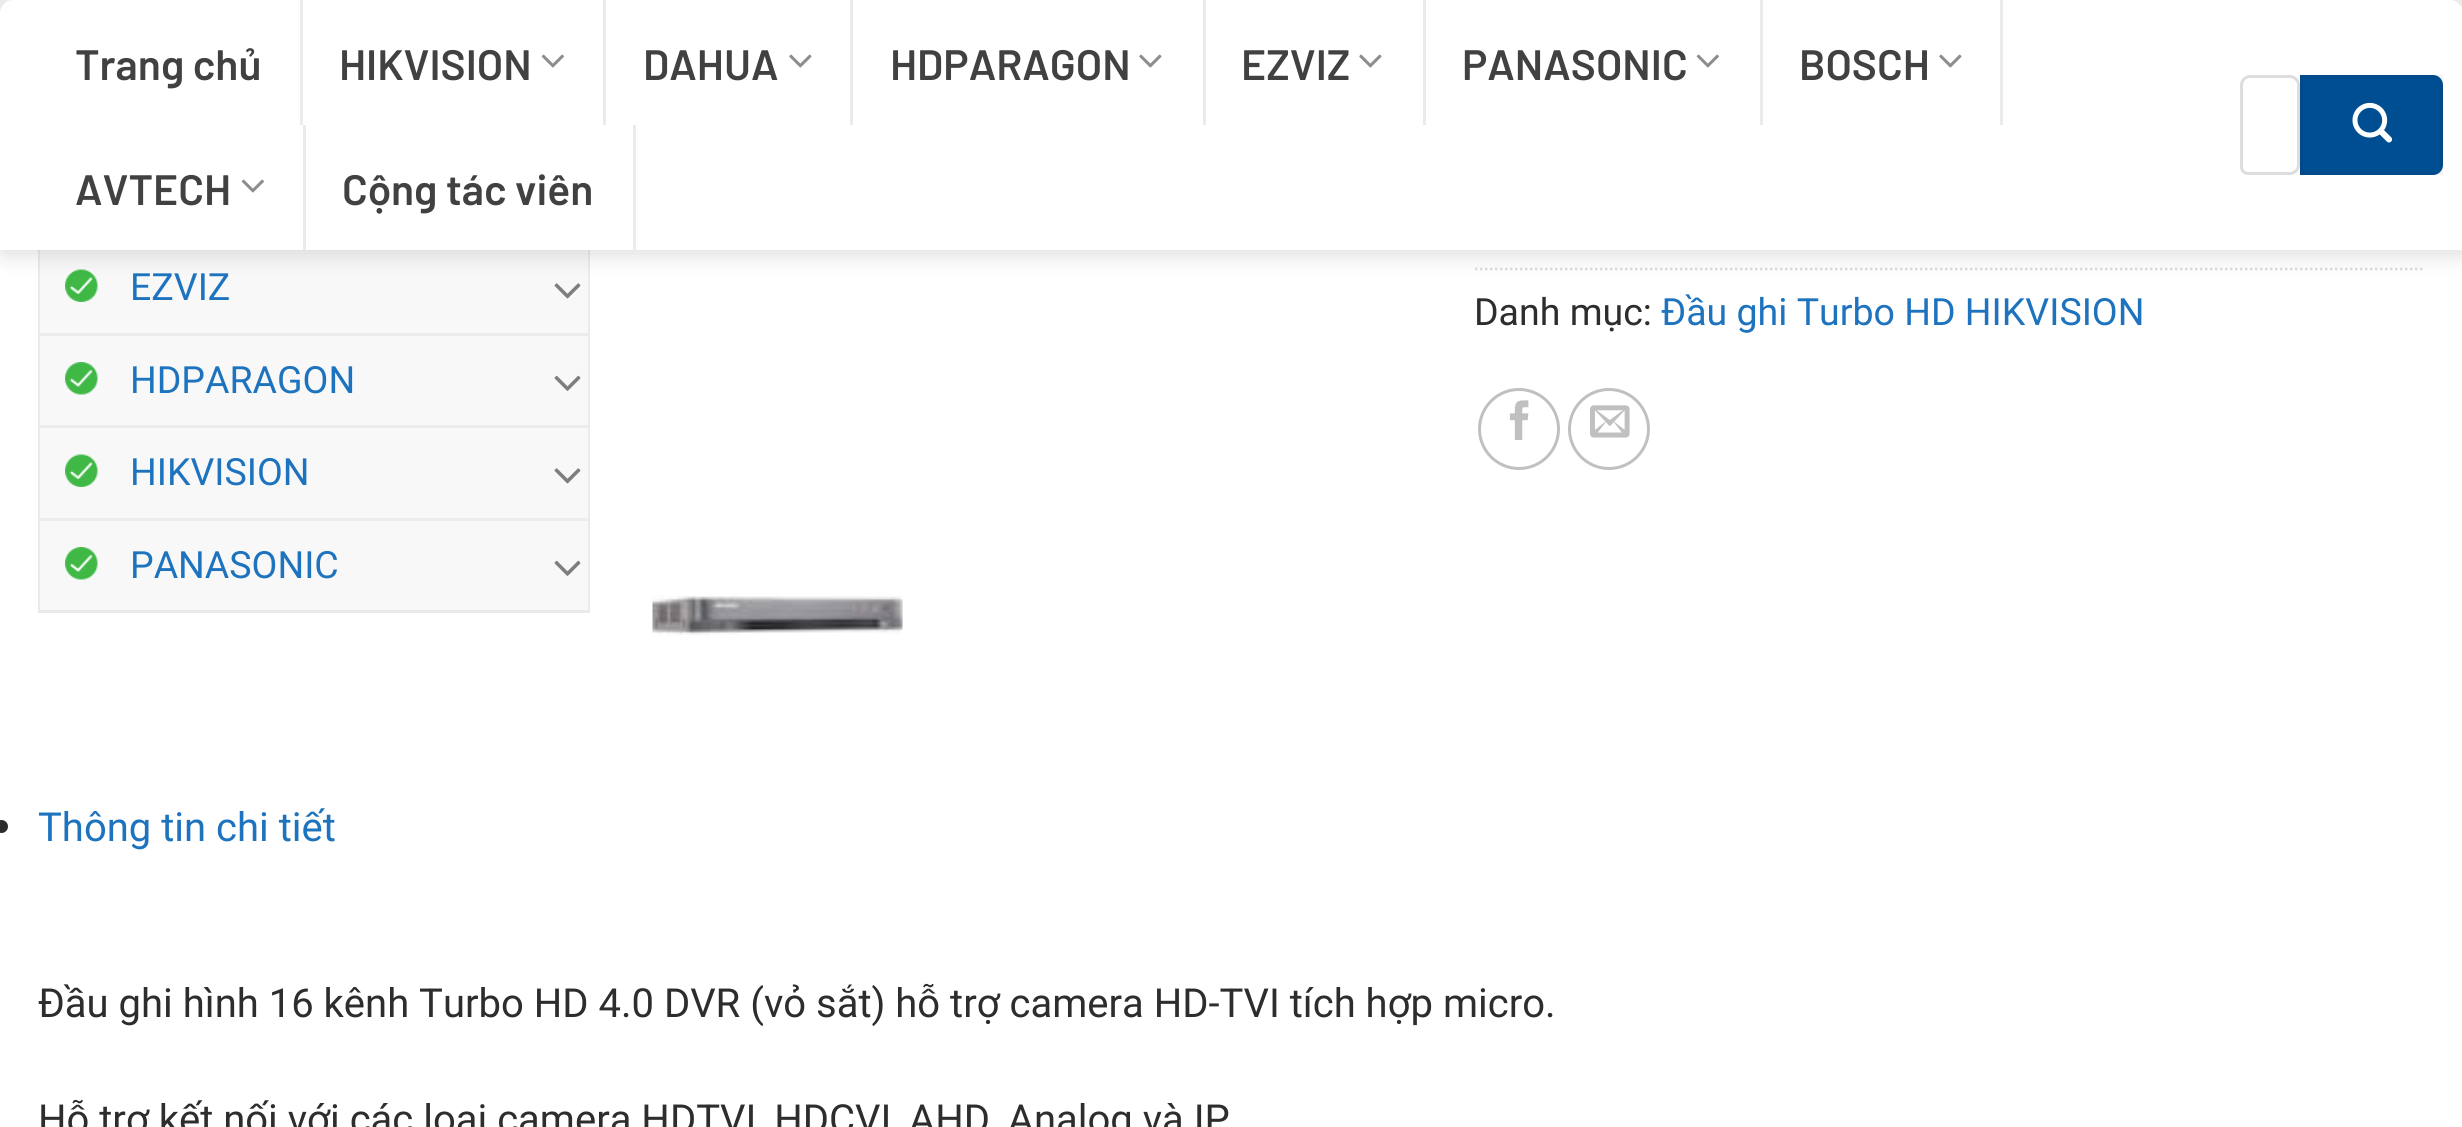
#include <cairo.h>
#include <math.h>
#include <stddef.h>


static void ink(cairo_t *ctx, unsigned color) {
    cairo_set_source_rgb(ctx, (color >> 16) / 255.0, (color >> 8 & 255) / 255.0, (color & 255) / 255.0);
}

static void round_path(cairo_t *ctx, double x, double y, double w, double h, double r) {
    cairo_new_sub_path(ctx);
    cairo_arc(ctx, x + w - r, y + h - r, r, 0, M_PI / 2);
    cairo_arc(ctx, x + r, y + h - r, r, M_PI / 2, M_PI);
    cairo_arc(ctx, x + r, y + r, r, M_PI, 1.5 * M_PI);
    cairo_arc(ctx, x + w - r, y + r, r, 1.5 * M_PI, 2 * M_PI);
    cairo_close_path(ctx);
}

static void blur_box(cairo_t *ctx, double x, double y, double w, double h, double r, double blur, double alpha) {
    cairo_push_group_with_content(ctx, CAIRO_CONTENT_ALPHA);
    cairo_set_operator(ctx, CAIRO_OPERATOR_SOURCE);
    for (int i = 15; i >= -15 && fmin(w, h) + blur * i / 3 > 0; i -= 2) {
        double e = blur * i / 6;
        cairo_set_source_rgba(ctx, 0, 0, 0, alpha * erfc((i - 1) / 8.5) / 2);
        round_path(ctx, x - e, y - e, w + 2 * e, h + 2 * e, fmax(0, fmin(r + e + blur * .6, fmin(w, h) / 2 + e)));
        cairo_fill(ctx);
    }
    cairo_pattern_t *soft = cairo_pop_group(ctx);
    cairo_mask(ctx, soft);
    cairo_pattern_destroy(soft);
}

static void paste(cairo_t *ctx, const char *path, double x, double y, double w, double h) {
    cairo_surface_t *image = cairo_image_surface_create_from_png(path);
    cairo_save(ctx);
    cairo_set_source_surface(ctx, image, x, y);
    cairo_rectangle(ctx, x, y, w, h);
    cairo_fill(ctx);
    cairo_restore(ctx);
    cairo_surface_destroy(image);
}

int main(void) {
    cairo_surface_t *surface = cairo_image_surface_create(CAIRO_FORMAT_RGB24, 2462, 1127);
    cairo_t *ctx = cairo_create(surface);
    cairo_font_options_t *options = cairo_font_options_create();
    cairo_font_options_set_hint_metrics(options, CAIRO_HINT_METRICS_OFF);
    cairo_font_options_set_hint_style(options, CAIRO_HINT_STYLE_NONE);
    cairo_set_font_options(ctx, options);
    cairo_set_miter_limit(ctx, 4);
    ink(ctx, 0xFFFFFF);
    cairo_paint(ctx);
    cairo_rectangle(ctx, 39.5, -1.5, 549, 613);
    ink(ctx, 0xEAEAEA);
    cairo_set_line_width(ctx, 3);
    cairo_stroke(ctx);
    ink(ctx, 0xF8F8F8);
    cairo_rectangle(ctx, 40, 250, 548, 360);
    cairo_fill(ctx);
    paste(ctx, "media/4.png", 65, 269, 33, 33);
    paste(ctx, "media/5.png", 554, 283, 27, 16);
    cairo_new_path(ctx);
    cairo_move_to(ctx, 1475, 269);
    cairo_line_to(ctx, 2425, 269);
    ink(ctx, 0xDDDDDD);
    cairo_set_line_width(ctx, 2.5);
    cairo_set_dash(ctx, (double[]){2.5, 2.5}, 2, 0);
    cairo_stroke(ctx);
    ink(ctx, 0x000000);
    blur_box(ctx, 3, 3, 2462, 250, 0, 12.5, 0.15);
    ink(ctx, 0xEBEBEB);
    cairo_rectangle(ctx, 0, 0, 2462, 13);
    cairo_fill(ctx);
    ink(ctx, 0xFFFFFF);
    cairo_new_path(ctx);
    cairo_move_to(ctx, 13, 0);
    cairo_line_to(ctx, 2450, 0);
    cairo_curve_to(ctx, 2457, 0, 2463, 6, 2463, 13);
    cairo_line_to(ctx, 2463, 250);
    cairo_line_to(ctx, 0, 250);
    cairo_line_to(ctx, 0, 13);
    cairo_curve_to(ctx, 0, 6, 6, 0, 13, 0);
    cairo_close_path(ctx);
    cairo_fill(ctx);
    ink(ctx, 0xEBEBEB);
    cairo_rectangle(ctx, 300, 0, 3, 125);
    cairo_fill(ctx);
    cairo_select_font_face(ctx, "Barlow SemiBold", CAIRO_FONT_SLANT_NORMAL, CAIRO_FONT_WEIGHT_NORMAL);
    cairo_set_font_size(ctx, 42.5);
    ink(ctx, 0x414141);
    cairo_move_to(ctx, 75, 80);
    cairo_show_text(ctx, "Trang chủ");
    ink(ctx, 0xEBEBEB);
    cairo_rectangle(ctx, 603, 0, 3, 125);
    cairo_fill(ctx);
    ink(ctx, 0x414141);
    cairo_move_to(ctx, 339, 80);
    cairo_show_text(ctx, "HIKVISION");
    paste(ctx, "media/1.png", 541, 54, 23, 14);
    ink(ctx, 0xEBEBEB);
    cairo_rectangle(ctx, 850, 0, 3, 125);
    cairo_fill(ctx);
    ink(ctx, 0x414141);
    cairo_move_to(ctx, 643, 80);
    cairo_show_text(ctx, "DAHUA");
    paste(ctx, "media/2.png", 789, 54, 23, 14);
    ink(ctx, 0xEBEBEB);
    cairo_rectangle(ctx, 1203, 0, 3, 125);
    cairo_fill(ctx);
    ink(ctx, 0x414141);
    cairo_move_to(ctx, 890, 80);
    cairo_show_text(ctx, "HDPARAGON");
    paste(ctx, "media/2.png", 1139, 54, 23, 14);
    ink(ctx, 0xEBEBEB);
    cairo_rectangle(ctx, 1423, 0, 3, 125);
    cairo_fill(ctx);
    ink(ctx, 0x414141);
    cairo_move_to(ctx, 1241, 80);
    cairo_show_text(ctx, "EZVIZ");
    paste(ctx, "media/2.png", 1359, 54, 23, 14);
    ink(ctx, 0xEBEBEB);
    cairo_rectangle(ctx, 1760, 0, 3, 125);
    cairo_fill(ctx);
    ink(ctx, 0x414141);
    cairo_move_to(ctx, 1462, 80);
    cairo_show_text(ctx, "PANASONIC");
    paste(ctx, "media/1.png", 1696, 54, 23, 14);
    ink(ctx, 0xEBEBEB);
    cairo_rectangle(ctx, 2000, 0, 3, 125);
    cairo_fill(ctx);
    ink(ctx, 0x414141);
    cairo_move_to(ctx, 1799, 80);
    cairo_show_text(ctx, "BOSCH");
    paste(ctx, "media/2.png", 1939, 54, 23, 14);
    ink(ctx, 0xEBEBEB);
    cairo_rectangle(ctx, 303, 125, 3, 125);
    cairo_fill(ctx);
    ink(ctx, 0x414141);
    cairo_move_to(ctx, 75, 205);
    cairo_show_text(ctx, "AVTECH");
    paste(ctx, "media/1.png", 241, 179, 23, 14);
    ink(ctx, 0xEBEBEB);
    cairo_rectangle(ctx, 633, 125, 3, 125);
    cairo_fill(ctx);
    ink(ctx, 0x414141);
    cairo_move_to(ctx, 342, 205);
    cairo_show_text(ctx, "Cộng tác viên");
    cairo_new_path(ctx);
    cairo_move_to(ctx, 2250, 76.5);
    cairo_line_to(ctx, 2290, 76.5);
    cairo_curve_to(ctx, 2294.5, 76.5, 2298.5, 80.5, 2298.5, 85);
    cairo_line_to(ctx, 2298.5, 165);
    cairo_curve_to(ctx, 2298.5, 169.5, 2294.5, 173.5, 2290, 173.5);
    cairo_line_to(ctx, 2248, 173.5);
    cairo_curve_to(ctx, 2244.5, 173.5, 2241.5, 170.5, 2241.5, 167);
    cairo_line_to(ctx, 2241.5, 85);
    cairo_curve_to(ctx, 2241.5, 80.5, 2245.5, 76.5, 2250, 76.5);
    cairo_close_path(ctx);
    ink(ctx, 0xDDDDDD);
    cairo_set_line_width(ctx, 3);
    cairo_set_dash(ctx, NULL, 0, 0);
    cairo_stroke(ctx);
    ink(ctx, 0x004E92);
    cairo_new_path(ctx);
    cairo_move_to(ctx, 2300, 75);
    cairo_line_to(ctx, 2433, 75);
    cairo_curve_to(ctx, 2438.5, 75, 2443, 79.5, 2443, 85);
    cairo_line_to(ctx, 2443, 165);
    cairo_curve_to(ctx, 2443, 170.5, 2438.5, 175, 2433, 175);
    cairo_line_to(ctx, 2300, 175);
    cairo_close_path(ctx);
    cairo_fill(ctx);
    cairo_rectangle(ctx, 2301.5, 76.5, 140, 97);
    cairo_set_source_rgba(ctx, 0, 0, 0, 0.05);
    cairo_stroke(ctx);
    paste(ctx, "media/3.png", 2352, 102, 41, 41);
    cairo_select_font_face(ctx, "Roboto", CAIRO_FONT_SLANT_NORMAL, CAIRO_FONT_WEIGHT_NORMAL);
    cairo_set_font_size(ctx, 37.5);
    ink(ctx, 0x1E73BE);
    cairo_move_to(ctx, 130, 300);
    cairo_show_text(ctx, "EZVIZ");
    ink(ctx, 0xECECEC);
    cairo_rectangle(ctx, 40, 333, 548, 3);
    cairo_fill(ctx);
    paste(ctx, "media/6.png", 65, 362, 33, 33);
    ink(ctx, 0x1E73BE);
    cairo_move_to(ctx, 130, 393);
    cairo_show_text(ctx, "HDPARAGON");
    paste(ctx, "media/7.png", 554, 375, 27, 16);
    ink(ctx, 0xECECEC);
    cairo_rectangle(ctx, 40, 425, 548, 3);
    cairo_fill(ctx);
    paste(ctx, "media/4.png", 65, 454, 33, 33);
    ink(ctx, 0x1E73BE);
    cairo_move_to(ctx, 130, 485);
    cairo_show_text(ctx, "HIKVISION");
    paste(ctx, "media/5.png", 554, 468, 27, 16);
    ink(ctx, 0xECECEC);
    cairo_rectangle(ctx, 40, 518, 548, 3);
    cairo_fill(ctx);
    paste(ctx, "media/6.png", 65, 547, 33, 33);
    ink(ctx, 0x1E73BE);
    cairo_move_to(ctx, 130, 578);
    cairo_show_text(ctx, "PANASONIC");
    paste(ctx, "media/7.png", 554, 560, 27, 16);
    ink(ctx, 0x2D2D2D);
    cairo_move_to(ctx, 1474, 325);
    cairo_show_text(ctx, "Danh mục:");
    ink(ctx, 0x1E73BE);
    cairo_move_to(ctx, 1661, 325);
    cairo_show_text(ctx, "Đầu ghi Turbo HD HIKVISION");
    cairo_new_path(ctx);
    cairo_arc(ctx, 1519, 429, 39.5, 0, 2 * M_PI);
    ink(ctx, 0xC0C0C0);
    cairo_stroke(ctx);
    paste(ctx, "media/8.png", 1509, 400, 20, 40);
    cairo_arc(ctx, 1609, 429, 39.5, 0, 2 * M_PI);
    cairo_stroke(ctx);
    paste(ctx, "media/9.png", 1590, 405, 40, 33);
    paste(ctx, "media/10.png", 652, 595, 251, 40);
    ink(ctx, 0x2D2D2D);
    cairo_arc(ctx, 1.5, 826.5, 6.5, 0, 2 * M_PI);
    cairo_fill(ctx);
    cairo_set_font_size(ctx, 40);
    ink(ctx, 0x1E73BE);
    cairo_move_to(ctx, 38, 841);
    cairo_show_text(ctx, "Thông tin chi tiết");
    ink(ctx, 0x2D2D2D);
    cairo_move_to(ctx, 38, 1017);
    cairo_show_text(ctx, "Đầu ghi hình 16 kênh Turbo HD 4.0 DVR (vỏ sắt) hỗ trợ camera HD-TVI tích hợp micro.");
    cairo_move_to(ctx, 38, 1133);
    cairo_show_text(ctx, "Hỗ trợ kết nối với các loại camera HDTVI, HDCVI, AHD, Analog và IP");
    cairo_surface_write_to_png(surface, "image.png");
    cairo_font_options_destroy(options);
    cairo_destroy(ctx);
    cairo_surface_destroy(surface);
    return 0;
}
